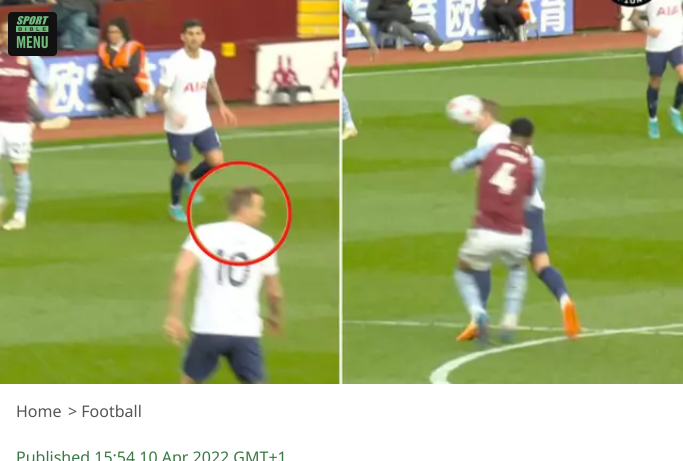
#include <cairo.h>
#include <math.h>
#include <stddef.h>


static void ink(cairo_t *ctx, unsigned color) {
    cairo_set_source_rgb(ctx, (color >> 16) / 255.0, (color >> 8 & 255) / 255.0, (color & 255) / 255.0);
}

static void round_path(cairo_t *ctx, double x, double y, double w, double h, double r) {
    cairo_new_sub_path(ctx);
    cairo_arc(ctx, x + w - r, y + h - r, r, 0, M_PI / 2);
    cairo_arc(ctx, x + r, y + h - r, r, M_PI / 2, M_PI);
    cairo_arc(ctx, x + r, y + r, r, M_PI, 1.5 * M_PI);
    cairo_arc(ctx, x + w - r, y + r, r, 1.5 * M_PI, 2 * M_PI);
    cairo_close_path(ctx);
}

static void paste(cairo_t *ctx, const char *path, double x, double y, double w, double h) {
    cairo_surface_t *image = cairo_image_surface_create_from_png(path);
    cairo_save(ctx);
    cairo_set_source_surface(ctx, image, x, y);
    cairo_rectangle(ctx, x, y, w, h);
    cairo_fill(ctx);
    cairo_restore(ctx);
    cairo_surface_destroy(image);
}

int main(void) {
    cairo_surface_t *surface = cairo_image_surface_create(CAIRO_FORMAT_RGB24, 683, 461);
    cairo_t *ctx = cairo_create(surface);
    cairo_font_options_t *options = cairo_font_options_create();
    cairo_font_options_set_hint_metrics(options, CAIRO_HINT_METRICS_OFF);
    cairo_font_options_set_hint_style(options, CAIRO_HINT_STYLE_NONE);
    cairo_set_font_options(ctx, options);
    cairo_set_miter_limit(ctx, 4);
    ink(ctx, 0xFFFFFF);
    cairo_paint(ctx);
    paste(ctx, "media/2.png", 0, 0, 683, 384);
    ink(ctx, 0x111111);
    round_path(ctx, 8, 12, 49, 44, 4);
    cairo_fill(ctx);
    paste(ctx, "media/1.png", 16, 16, 33, 16);
    cairo_select_font_face(ctx, "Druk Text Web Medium", CAIRO_FONT_SLANT_NORMAL, CAIRO_FONT_WEIGHT_NORMAL);
    cairo_set_font_size(ctx, 16);
    ink(ctx, 0x72B97D);
    cairo_move_to(ctx, 16, 48);
    cairo_show_text(ctx, "MENU");
    cairo_select_font_face(ctx, "Noto Sans", CAIRO_FONT_SLANT_NORMAL, CAIRO_FONT_WEIGHT_NORMAL);
    ink(ctx, 0x555555);
    cairo_move_to(ctx, 16, 417);
    cairo_show_text(ctx, "Home");
    cairo_move_to(ctx, 68, 417);
    cairo_show_text(ctx, "> Football");
    ink(ctx, 0x397843);
    cairo_move_to(ctx, 16, 463);
    cairo_show_text(ctx, "Published 15:54 10 Apr 2022 GMT+1");
    cairo_surface_write_to_png(surface, "image.png");
    cairo_font_options_destroy(options);
    cairo_destroy(ctx);
    cairo_surface_destroy(surface);
    return 0;
}
